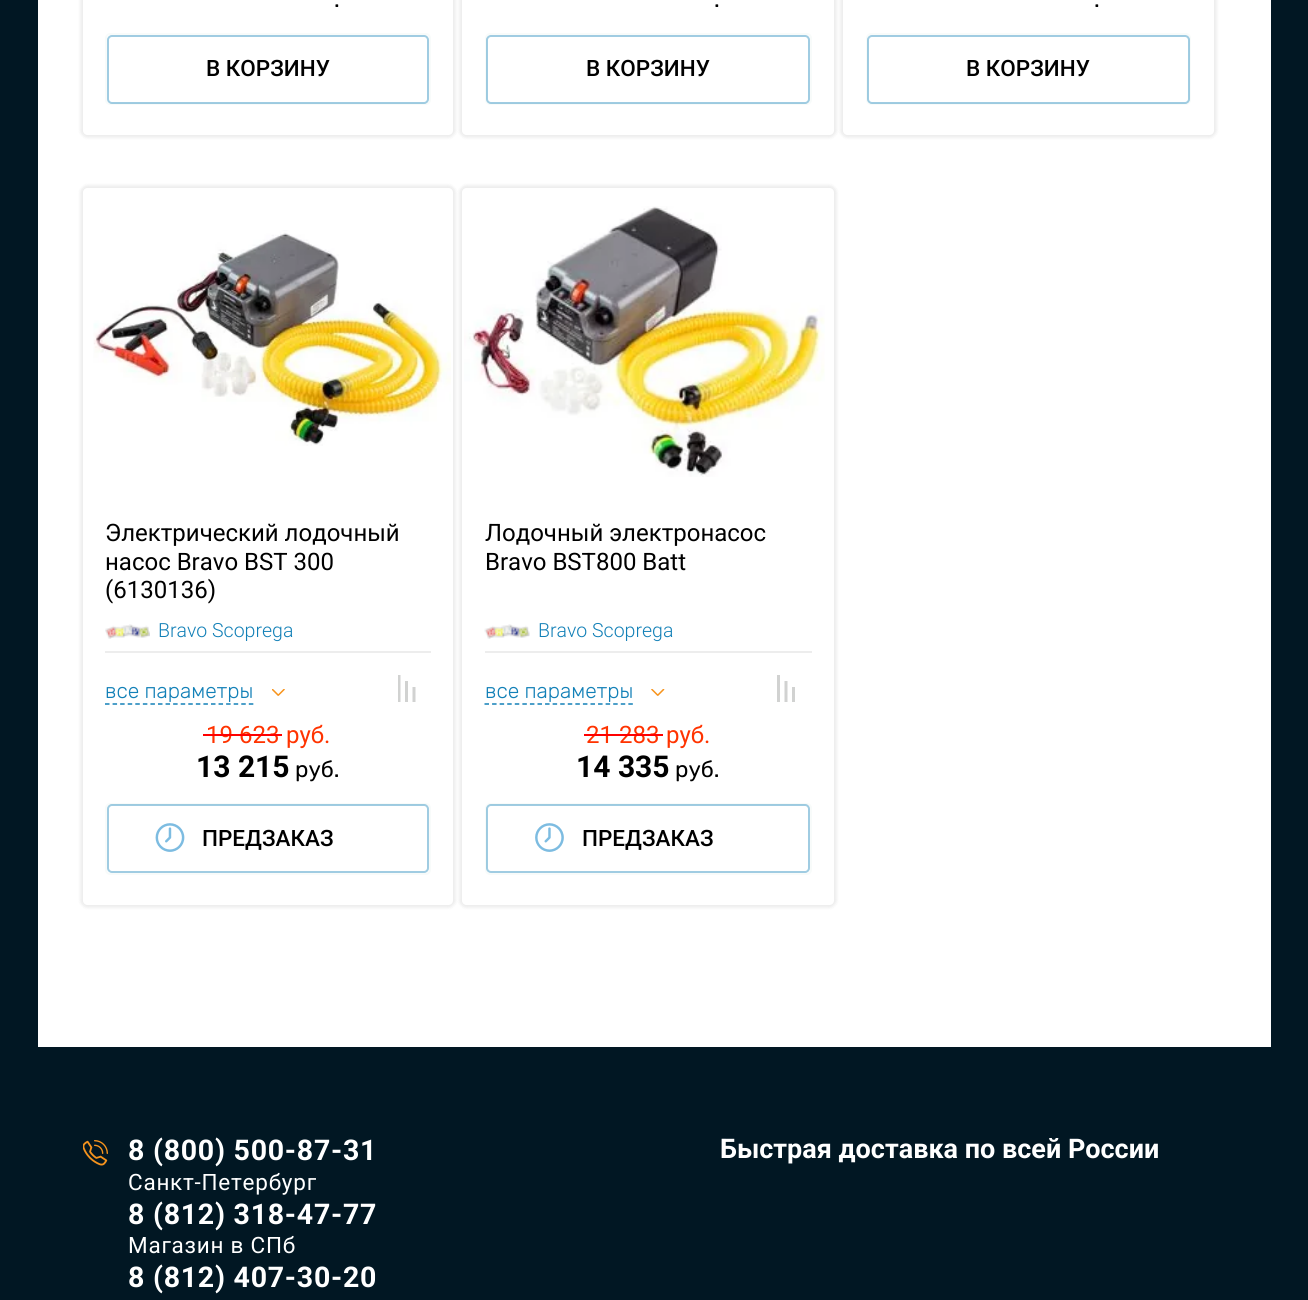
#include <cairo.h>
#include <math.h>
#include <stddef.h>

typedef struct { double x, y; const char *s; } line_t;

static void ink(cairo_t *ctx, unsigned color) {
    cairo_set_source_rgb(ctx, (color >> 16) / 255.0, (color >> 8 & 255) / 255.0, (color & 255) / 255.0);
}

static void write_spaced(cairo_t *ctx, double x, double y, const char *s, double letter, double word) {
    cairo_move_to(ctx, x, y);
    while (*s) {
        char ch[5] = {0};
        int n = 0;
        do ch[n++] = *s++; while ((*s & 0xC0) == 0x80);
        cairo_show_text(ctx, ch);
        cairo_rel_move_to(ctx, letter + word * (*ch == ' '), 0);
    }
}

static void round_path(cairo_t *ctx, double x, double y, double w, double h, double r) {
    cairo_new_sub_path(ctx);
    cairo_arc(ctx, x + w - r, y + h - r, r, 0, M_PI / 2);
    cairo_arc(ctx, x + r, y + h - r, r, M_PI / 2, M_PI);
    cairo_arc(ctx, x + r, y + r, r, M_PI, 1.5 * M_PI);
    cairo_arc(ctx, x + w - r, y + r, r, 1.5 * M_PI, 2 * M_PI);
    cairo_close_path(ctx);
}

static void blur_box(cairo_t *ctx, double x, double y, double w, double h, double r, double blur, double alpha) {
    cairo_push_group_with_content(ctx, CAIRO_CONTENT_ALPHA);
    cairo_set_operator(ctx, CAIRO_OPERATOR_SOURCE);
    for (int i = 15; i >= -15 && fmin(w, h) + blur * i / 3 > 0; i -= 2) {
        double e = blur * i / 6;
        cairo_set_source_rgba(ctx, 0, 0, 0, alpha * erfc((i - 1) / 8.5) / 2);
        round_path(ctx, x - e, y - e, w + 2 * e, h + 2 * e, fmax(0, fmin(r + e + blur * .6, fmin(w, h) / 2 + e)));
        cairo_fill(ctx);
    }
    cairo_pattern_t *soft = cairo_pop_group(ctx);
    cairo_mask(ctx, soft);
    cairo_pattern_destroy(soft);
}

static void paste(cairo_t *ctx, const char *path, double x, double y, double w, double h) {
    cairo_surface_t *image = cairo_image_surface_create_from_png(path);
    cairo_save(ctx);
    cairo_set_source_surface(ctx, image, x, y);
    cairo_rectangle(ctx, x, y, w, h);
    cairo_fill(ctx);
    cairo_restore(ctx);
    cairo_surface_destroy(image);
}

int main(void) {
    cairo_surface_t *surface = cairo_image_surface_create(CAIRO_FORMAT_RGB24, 1308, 1300);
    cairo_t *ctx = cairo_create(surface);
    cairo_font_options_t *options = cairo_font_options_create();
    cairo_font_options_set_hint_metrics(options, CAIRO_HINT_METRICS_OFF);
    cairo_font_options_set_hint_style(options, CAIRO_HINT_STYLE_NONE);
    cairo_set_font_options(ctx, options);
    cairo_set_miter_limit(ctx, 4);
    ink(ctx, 0x011723);
    cairo_paint(ctx);
    ink(ctx, 0xFFFFFF);
    cairo_rectangle(ctx, 38, 0, 1233, 1047);
    cairo_fill(ctx);
    cairo_save(ctx);
    cairo_set_fill_rule(ctx, CAIRO_FILL_RULE_EVEN_ODD);
    cairo_new_path(ctx);
    cairo_move_to(ctx, 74, 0);
    cairo_line_to(ctx, 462, 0);
    cairo_line_to(ctx, 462, 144);
    cairo_line_to(ctx, 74, 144);
    cairo_close_path(ctx);
    cairo_move_to(ctx, 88, -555);
    cairo_line_to(ctx, 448, -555);
    cairo_curve_to(ctx, 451, -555, 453, -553, 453, -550);
    cairo_line_to(ctx, 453, 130);
    cairo_curve_to(ctx, 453, 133, 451, 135, 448, 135);
    cairo_line_to(ctx, 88, 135);
    cairo_curve_to(ctx, 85, 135, 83, 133, 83, 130);
    cairo_line_to(ctx, 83, -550);
    cairo_curve_to(ctx, 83, -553, 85, -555, 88, -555);
    cairo_close_path(ctx);
    cairo_clip(ctx);
    ink(ctx, 0x000000);
    blur_box(ctx, 80, -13, 376, 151, 8, 1.5, 0.07);
    cairo_restore(ctx);
    cairo_select_font_face(ctx, "Rubik", CAIRO_FONT_SLANT_NORMAL, CAIRO_FONT_WEIGHT_NORMAL);
    cairo_set_font_size(ctx, 22.5);
    ink(ctx, 0x000000);
    cairo_move_to(ctx, 334, 7);
    cairo_show_text(ctx, ".");
    round_path(ctx, 106, 34, 324, 70, 4);
    ink(ctx, 0xF8FBFA);
    cairo_stroke(ctx);
    round_path(ctx, 108, 36, 320, 67, 4);
    cairo_set_source_rgba(ctx, 0.071, 0.502, 0.718, 0.4);
    cairo_stroke(ctx);
    cairo_select_font_face(ctx, "Roboto Medium", CAIRO_FONT_SLANT_NORMAL, CAIRO_FONT_WEIGHT_NORMAL);
    ink(ctx, 0x000000);
    cairo_move_to(ctx, 206, 76);
    cairo_show_text(ctx, "В КОРЗИНУ");
    cairo_save(ctx);
    cairo_set_fill_rule(ctx, CAIRO_FILL_RULE_EVEN_ODD);
    cairo_new_path(ctx);
    cairo_move_to(ctx, 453, 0);
    cairo_line_to(ctx, 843, 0);
    cairo_line_to(ctx, 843, 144);
    cairo_line_to(ctx, 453, 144);
    cairo_close_path(ctx);
    cairo_move_to(ctx, 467, -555);
    cairo_line_to(ctx, 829, -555);
    cairo_curve_to(ctx, 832, -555, 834, -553, 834, -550);
    cairo_line_to(ctx, 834, 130);
    cairo_curve_to(ctx, 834, 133, 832, 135, 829, 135);
    cairo_line_to(ctx, 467, 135);
    cairo_curve_to(ctx, 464, 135, 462, 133, 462, 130);
    cairo_line_to(ctx, 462, -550);
    cairo_curve_to(ctx, 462, -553, 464, -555, 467, -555);
    cairo_close_path(ctx);
    cairo_clip(ctx);
    ink(ctx, 0x000000);
    blur_box(ctx, 459, -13, 378, 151, 8, 1.5, 0.07);
    cairo_restore(ctx);
    cairo_select_font_face(ctx, "Rubik", CAIRO_FONT_SLANT_NORMAL, CAIRO_FONT_WEIGHT_NORMAL);
    cairo_move_to(ctx, 714, 7);
    cairo_show_text(ctx, ".");
    round_path(ctx, 486, 34, 325, 70, 4);
    ink(ctx, 0xF8FBFA);
    cairo_stroke(ctx);
    round_path(ctx, 487, 36, 322, 67, 4);
    cairo_set_source_rgba(ctx, 0.071, 0.502, 0.718, 0.4);
    cairo_stroke(ctx);
    cairo_select_font_face(ctx, "Roboto Medium", CAIRO_FONT_SLANT_NORMAL, CAIRO_FONT_WEIGHT_NORMAL);
    ink(ctx, 0x000000);
    cairo_move_to(ctx, 586, 76);
    cairo_show_text(ctx, "В КОРЗИНУ");
    cairo_save(ctx);
    cairo_set_fill_rule(ctx, CAIRO_FILL_RULE_EVEN_ODD);
    cairo_new_path(ctx);
    cairo_move_to(ctx, 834, 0);
    cairo_line_to(ctx, 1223, 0);
    cairo_line_to(ctx, 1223, 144);
    cairo_line_to(ctx, 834, 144);
    cairo_close_path(ctx);
    cairo_move_to(ctx, 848, -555);
    cairo_line_to(ctx, 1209, -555);
    cairo_curve_to(ctx, 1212, -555, 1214, -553, 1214, -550);
    cairo_line_to(ctx, 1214, 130);
    cairo_curve_to(ctx, 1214, 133, 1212, 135, 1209, 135);
    cairo_line_to(ctx, 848, 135);
    cairo_curve_to(ctx, 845, 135, 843, 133, 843, 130);
    cairo_line_to(ctx, 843, -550);
    cairo_curve_to(ctx, 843, -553, 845, -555, 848, -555);
    cairo_close_path(ctx);
    cairo_clip(ctx);
    ink(ctx, 0x000000);
    blur_box(ctx, 840, -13, 377, 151, 8, 1.5, 0.07);
    cairo_restore(ctx);
    cairo_select_font_face(ctx, "Rubik", CAIRO_FONT_SLANT_NORMAL, CAIRO_FONT_WEIGHT_NORMAL);
    cairo_move_to(ctx, 1094, 7);
    cairo_show_text(ctx, ".");
    round_path(ctx, 867, 34, 323, 70, 4);
    ink(ctx, 0xF8FBFA);
    cairo_stroke(ctx);
    round_path(ctx, 868, 36, 321, 67, 4);
    cairo_set_source_rgba(ctx, 0.071, 0.502, 0.718, 0.4);
    cairo_stroke(ctx);
    cairo_select_font_face(ctx, "Roboto Medium", CAIRO_FONT_SLANT_NORMAL, CAIRO_FONT_WEIGHT_NORMAL);
    ink(ctx, 0x000000);
    cairo_move_to(ctx, 966, 76);
    cairo_show_text(ctx, "В КОРЗИНУ");
    cairo_save(ctx);
    cairo_set_fill_rule(ctx, CAIRO_FILL_RULE_EVEN_ODD);
    cairo_new_path(ctx);
    cairo_move_to(ctx, 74, 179);
    cairo_line_to(ctx, 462, 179);
    cairo_line_to(ctx, 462, 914);
    cairo_line_to(ctx, 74, 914);
    cairo_close_path(ctx);
    cairo_move_to(ctx, 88, 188);
    cairo_line_to(ctx, 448, 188);
    cairo_curve_to(ctx, 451, 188, 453, 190, 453, 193);
    cairo_line_to(ctx, 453, 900);
    cairo_curve_to(ctx, 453, 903, 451, 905, 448, 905);
    cairo_line_to(ctx, 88, 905);
    cairo_curve_to(ctx, 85, 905, 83, 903, 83, 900);
    cairo_line_to(ctx, 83, 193);
    cairo_curve_to(ctx, 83, 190, 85, 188, 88, 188);
    cairo_close_path(ctx);
    cairo_clip(ctx);
    ink(ctx, 0x000000);
    blur_box(ctx, 80, 185, 376, 723, 8, 1.5, 0.07);
    cairo_restore(ctx);
    paste(ctx, "media/1.png", 93, 230, 358, 216);
    ink(ctx, 0xEDEDED);
    cairo_rectangle(ctx, 105, 651, 326, 2);
    cairo_fill(ctx);
    cairo_select_font_face(ctx, "Roboto", CAIRO_FONT_SLANT_NORMAL, CAIRO_FONT_WEIGHT_NORMAL);
    cairo_set_font_size(ctx, 24);
    ink(ctx, 0x000000);
    {
        static const line_t items[] = {
            {105, 541, "Электрический лодочный"},
            {105, 570, "насос Bravo BST 300"},
            {105, 598, "(6130136)"},
        };
        for (size_t i = 0; i < sizeof items / sizeof *items; i++) {
            cairo_move_to(ctx, items[i].x, items[i].y);
            cairo_show_text(ctx, items[i].s);
        }
    }
    paste(ctx, "media/2.png", 105, 624, 45, 15);
    cairo_select_font_face(ctx, "Roboto Light", CAIRO_FONT_SLANT_NORMAL, CAIRO_FONT_WEIGHT_NORMAL);
    cairo_set_font_size(ctx, 19.5);
    ink(ctx, 0x1280B7);
    cairo_move_to(ctx, 158, 637);
    cairo_show_text(ctx, "Bravo Scoprega");
    cairo_new_path(ctx);
    cairo_move_to(ctx, 105, 704);
    cairo_line_to(ctx, 253.5, 704);
    cairo_set_line_width(ctx, 1.5);
    cairo_set_dash(ctx, (double[]){4.5, 3.07}, 2, 0);
    cairo_stroke(ctx);
    cairo_select_font_face(ctx, "Rubik Light", CAIRO_FONT_SLANT_NORMAL, CAIRO_FONT_WEIGHT_NORMAL);
    cairo_set_font_size(ctx, 21);
    cairo_move_to(ctx, 105, 698);
    cairo_show_text(ctx, "все параметры");
    paste(ctx, "media/3.png", 272, 689, 13, 7);
    paste(ctx, "media/4.png", 398, 675, 18, 27);
    cairo_select_font_face(ctx, "Roboto", CAIRO_FONT_SLANT_NORMAL, CAIRO_FONT_WEIGHT_NORMAL);
    cairo_set_font_size(ctx, 24);
    ink(ctx, 0xFF3300);
    cairo_move_to(ctx, 206, 743);
    cairo_show_text(ctx, "19 623");
    ink(ctx, 0xFF0000);
    cairo_rectangle(ctx, 203, 734, 79, 2);
    cairo_fill(ctx);
    ink(ctx, 0xFF3300);
    cairo_move_to(ctx, 286, 743);
    cairo_show_text(ctx, "руб.");
    cairo_select_font_face(ctx, "Roboto", CAIRO_FONT_SLANT_NORMAL, CAIRO_FONT_WEIGHT_BOLD);
    cairo_set_font_size(ctx, 30);
    ink(ctx, 0x000000);
    cairo_move_to(ctx, 196, 777);
    cairo_show_text(ctx, "13 215");
    cairo_select_font_face(ctx, "Rubik", CAIRO_FONT_SLANT_NORMAL, CAIRO_FONT_WEIGHT_NORMAL);
    cairo_set_font_size(ctx, 22.5);
    cairo_move_to(ctx, 295, 777);
    cairo_show_text(ctx, "руб.");
    round_path(ctx, 106, 804, 324, 70, 4);
    ink(ctx, 0xF8FBFA);
    cairo_set_line_width(ctx, 2);
    cairo_set_dash(ctx, NULL, 0, 0);
    cairo_stroke(ctx);
    paste(ctx, "media/5.png", 155, 823, 30, 29);
    round_path(ctx, 108, 805, 320, 67, 4);
    cairo_set_source_rgba(ctx, 0.071, 0.502, 0.718, 0.4);
    cairo_stroke(ctx);
    cairo_select_font_face(ctx, "Roboto Medium", CAIRO_FONT_SLANT_NORMAL, CAIRO_FONT_WEIGHT_NORMAL);
    ink(ctx, 0x000000);
    cairo_move_to(ctx, 202, 846);
    cairo_show_text(ctx, "ПРЕДЗАКАЗ");
    cairo_save(ctx);
    cairo_set_fill_rule(ctx, CAIRO_FILL_RULE_EVEN_ODD);
    cairo_new_path(ctx);
    cairo_move_to(ctx, 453, 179);
    cairo_line_to(ctx, 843, 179);
    cairo_line_to(ctx, 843, 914);
    cairo_line_to(ctx, 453, 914);
    cairo_close_path(ctx);
    cairo_move_to(ctx, 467, 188);
    cairo_line_to(ctx, 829, 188);
    cairo_curve_to(ctx, 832, 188, 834, 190, 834, 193);
    cairo_line_to(ctx, 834, 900);
    cairo_curve_to(ctx, 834, 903, 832, 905, 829, 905);
    cairo_line_to(ctx, 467, 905);
    cairo_curve_to(ctx, 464, 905, 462, 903, 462, 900);
    cairo_line_to(ctx, 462, 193);
    cairo_curve_to(ctx, 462, 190, 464, 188, 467, 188);
    cairo_close_path(ctx);
    cairo_clip(ctx);
    ink(ctx, 0x000000);
    blur_box(ctx, 459, 185, 378, 723, 8, 1.5, 0.07);
    cairo_restore(ctx);
    paste(ctx, "media/6.png", 464, 206, 361, 271);
    ink(ctx, 0xEDEDED);
    cairo_rectangle(ctx, 485, 651, 327, 2);
    cairo_fill(ctx);
    cairo_select_font_face(ctx, "Roboto", CAIRO_FONT_SLANT_NORMAL, CAIRO_FONT_WEIGHT_NORMAL);
    cairo_set_font_size(ctx, 24);
    ink(ctx, 0x000000);
    cairo_move_to(ctx, 485, 541);
    cairo_show_text(ctx, "Лодочный электронасос");
    cairo_move_to(ctx, 485, 570);
    cairo_show_text(ctx, "Bravo BST800 Batt");
    paste(ctx, "media/7.png", 484, 624, 46, 15);
    cairo_select_font_face(ctx, "Roboto Light", CAIRO_FONT_SLANT_NORMAL, CAIRO_FONT_WEIGHT_NORMAL);
    cairo_set_font_size(ctx, 19.5);
    ink(ctx, 0x1280B7);
    cairo_move_to(ctx, 538, 637);
    cairo_show_text(ctx, "Bravo Scoprega");
    cairo_new_path(ctx);
    cairo_move_to(ctx, 484.5, 704);
    cairo_line_to(ctx, 633, 704);
    cairo_set_line_width(ctx, 1.5);
    cairo_set_dash(ctx, (double[]){4.5, 3.07}, 2, 0);
    cairo_stroke(ctx);
    cairo_select_font_face(ctx, "Rubik Light", CAIRO_FONT_SLANT_NORMAL, CAIRO_FONT_WEIGHT_NORMAL);
    cairo_set_font_size(ctx, 21);
    cairo_move_to(ctx, 485, 698);
    cairo_show_text(ctx, "все параметры");
    paste(ctx, "media/8.png", 651, 689, 14, 7);
    paste(ctx, "media/9.png", 777, 675, 18, 27);
    cairo_select_font_face(ctx, "Roboto", CAIRO_FONT_SLANT_NORMAL, CAIRO_FONT_WEIGHT_NORMAL);
    cairo_set_font_size(ctx, 24);
    ink(ctx, 0xFF3300);
    cairo_move_to(ctx, 586, 743);
    cairo_show_text(ctx, "21 283");
    ink(ctx, 0xFF0000);
    cairo_rectangle(ctx, 584, 734, 79, 2);
    cairo_fill(ctx);
    ink(ctx, 0xFF3300);
    cairo_move_to(ctx, 666, 743);
    cairo_show_text(ctx, "руб.");
    cairo_select_font_face(ctx, "Roboto", CAIRO_FONT_SLANT_NORMAL, CAIRO_FONT_WEIGHT_BOLD);
    cairo_set_font_size(ctx, 30);
    ink(ctx, 0x000000);
    cairo_move_to(ctx, 576, 777);
    cairo_show_text(ctx, "14 335");
    cairo_select_font_face(ctx, "Rubik", CAIRO_FONT_SLANT_NORMAL, CAIRO_FONT_WEIGHT_NORMAL);
    cairo_set_font_size(ctx, 22.5);
    cairo_move_to(ctx, 675, 777);
    cairo_show_text(ctx, "руб.");
    round_path(ctx, 486, 804, 325, 70, 4);
    ink(ctx, 0xF8FBFA);
    cairo_set_line_width(ctx, 2);
    cairo_set_dash(ctx, NULL, 0, 0);
    cairo_stroke(ctx);
    paste(ctx, "media/10.png", 535, 823, 29, 29);
    round_path(ctx, 487, 805, 322, 67, 4);
    cairo_set_source_rgba(ctx, 0.071, 0.502, 0.718, 0.4);
    cairo_stroke(ctx);
    cairo_select_font_face(ctx, "Roboto Medium", CAIRO_FONT_SLANT_NORMAL, CAIRO_FONT_WEIGHT_NORMAL);
    ink(ctx, 0x000000);
    cairo_move_to(ctx, 582, 846);
    cairo_show_text(ctx, "ПРЕДЗАКАЗ");
    paste(ctx, "media/11.png", 83, 1140, 25, 26);
    cairo_select_font_face(ctx, "Roboto", CAIRO_FONT_SLANT_NORMAL, CAIRO_FONT_WEIGHT_BOLD);
    cairo_set_font_size(ctx, 28.5);
    ink(ctx, 0xFFFFFF);
    write_spaced(ctx, 128, 1160, "8 (800) 500-87-31", 0.75, 0);
    cairo_select_font_face(ctx, "Roboto", CAIRO_FONT_SLANT_NORMAL, CAIRO_FONT_WEIGHT_NORMAL);
    cairo_set_font_size(ctx, 22.5);
    write_spaced(ctx, 128, 1190, "Санкт-Петербург", 0.75, 0);
    cairo_select_font_face(ctx, "Roboto", CAIRO_FONT_SLANT_NORMAL, CAIRO_FONT_WEIGHT_BOLD);
    cairo_set_font_size(ctx, 28.5);
    write_spaced(ctx, 128, 1224, "8 (812) 318-47-77", 0.75, 0);
    cairo_select_font_face(ctx, "Roboto", CAIRO_FONT_SLANT_NORMAL, CAIRO_FONT_WEIGHT_NORMAL);
    cairo_set_font_size(ctx, 22.5);
    write_spaced(ctx, 128, 1253, "Магазин в СПб", 0.75, 0);
    cairo_select_font_face(ctx, "Roboto", CAIRO_FONT_SLANT_NORMAL, CAIRO_FONT_WEIGHT_BOLD);
    cairo_set_font_size(ctx, 28.5);
    write_spaced(ctx, 128, 1287, "8 (812) 407-30-20", 0.75, 0);
    cairo_set_font_size(ctx, 27);
    cairo_move_to(ctx, 720, 1158);
    cairo_show_text(ctx, "Быстрая доставка по всей России");
    cairo_surface_write_to_png(surface, "image.png");
    cairo_font_options_destroy(options);
    cairo_destroy(ctx);
    cairo_surface_destroy(surface);
    return 0;
}
